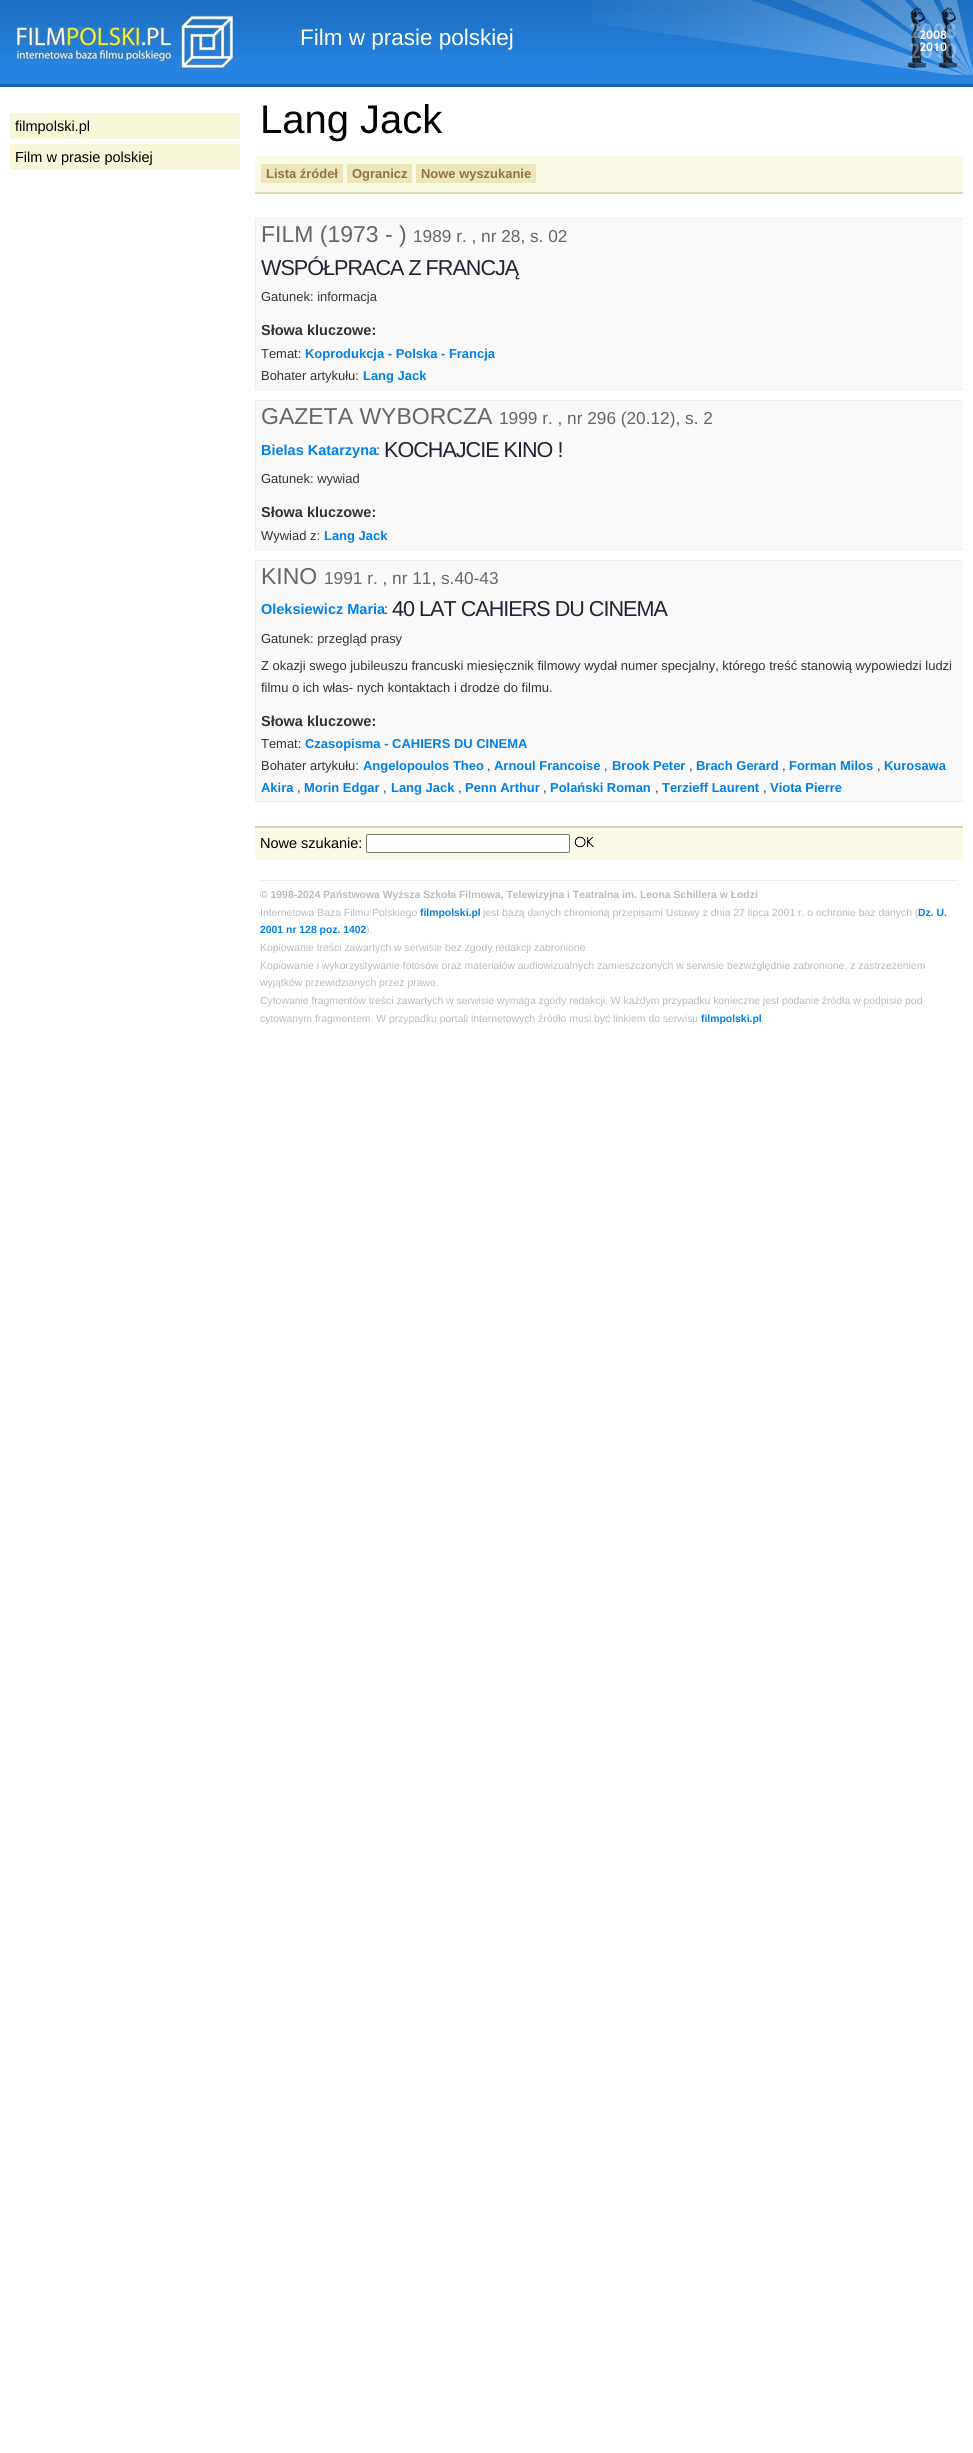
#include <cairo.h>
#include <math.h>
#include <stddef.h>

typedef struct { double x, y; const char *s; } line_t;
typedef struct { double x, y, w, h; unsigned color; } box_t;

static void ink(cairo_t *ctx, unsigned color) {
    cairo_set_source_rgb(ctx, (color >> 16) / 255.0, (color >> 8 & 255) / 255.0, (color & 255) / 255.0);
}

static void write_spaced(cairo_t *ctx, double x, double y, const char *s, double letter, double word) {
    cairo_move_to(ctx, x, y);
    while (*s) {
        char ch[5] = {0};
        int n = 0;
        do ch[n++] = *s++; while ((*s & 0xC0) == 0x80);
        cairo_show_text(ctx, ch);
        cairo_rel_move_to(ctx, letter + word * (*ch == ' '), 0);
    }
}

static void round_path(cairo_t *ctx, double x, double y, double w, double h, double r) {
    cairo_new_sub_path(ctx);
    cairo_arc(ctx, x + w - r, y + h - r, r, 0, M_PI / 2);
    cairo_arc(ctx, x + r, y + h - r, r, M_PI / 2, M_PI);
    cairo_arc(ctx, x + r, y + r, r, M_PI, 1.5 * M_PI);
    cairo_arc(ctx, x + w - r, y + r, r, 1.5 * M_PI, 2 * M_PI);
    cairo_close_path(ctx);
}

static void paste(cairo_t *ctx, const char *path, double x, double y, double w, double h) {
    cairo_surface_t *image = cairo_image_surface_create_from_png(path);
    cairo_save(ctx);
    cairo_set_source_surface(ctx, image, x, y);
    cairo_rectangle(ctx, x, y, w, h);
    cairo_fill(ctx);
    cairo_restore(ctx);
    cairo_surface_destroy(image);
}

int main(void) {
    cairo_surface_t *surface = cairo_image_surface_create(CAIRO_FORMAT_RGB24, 973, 2453);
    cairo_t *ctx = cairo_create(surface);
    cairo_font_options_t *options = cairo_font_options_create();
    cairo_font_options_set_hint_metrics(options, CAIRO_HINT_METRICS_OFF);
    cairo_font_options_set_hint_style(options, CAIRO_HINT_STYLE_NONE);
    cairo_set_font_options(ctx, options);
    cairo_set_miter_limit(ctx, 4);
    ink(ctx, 0xFFFFFF);
    cairo_paint(ctx);
    ink(ctx, 0x2683DF);
    cairo_rectangle(ctx, 0, 57, 973, 27);
    cairo_fill(ctx);
    paste(ctx, "media/1.png", 0, 0, 592, 57);
    paste(ctx, "media/2.png", 592, 0, 381, 75);
    paste(ctx, "media/3.png", 17, 15, 217, 54);
    cairo_select_font_face(ctx, "Liberation Sans", CAIRO_FONT_SLANT_NORMAL, CAIRO_FONT_WEIGHT_NORMAL);
    cairo_set_font_size(ctx, 22.5);
    ink(ctx, 0xFFFFFF);
    cairo_move_to(ctx, 300, 45);
    cairo_show_text(ctx, "Film w prasie polskiej");
    ink(ctx, 0xF7F7D7);
    cairo_rectangle(ctx, 10, 113, 230, 26);
    cairo_fill(ctx);
    cairo_set_font_size(ctx, 14.5);
    ink(ctx, 0x000000);
    cairo_move_to(ctx, 15, 131);
    cairo_show_text(ctx, "filmpolski.pl");
    ink(ctx, 0xF7F7D7);
    cairo_rectangle(ctx, 10, 144, 230, 26);
    cairo_fill(ctx);
    ink(ctx, 0x000000);
    cairo_move_to(ctx, 15, 162);
    cairo_show_text(ctx, "Film w prasie polskiej");
    ink(ctx, 0x1860A7);
    cairo_rectangle(ctx, 0, 84, 973, 3);
    cairo_fill(ctx);
    cairo_set_font_size(ctx, 40);
    ink(ctx, 0x000000);
    cairo_move_to(ctx, 260, 133);
    cairo_show_text(ctx, "Lang Jack");
    {
        static const box_t items[] = {
            {255, 156, 708, 36, 0xFAFAE7},
            {255, 192, 708, 2, 0xDFD6B0},
            {261, 164, 82, 19, 0xEBE7B8},
        };
        for (size_t i = 0; i < sizeof items / sizeof *items; i++) {
            ink(ctx, items[i].color);
            cairo_rectangle(ctx, items[i].x, items[i].y, items[i].w, items[i].h);
            cairo_fill(ctx);
        }
    }
    cairo_select_font_face(ctx, "Liberation Sans", CAIRO_FONT_SLANT_NORMAL, CAIRO_FONT_WEIGHT_BOLD);
    cairo_set_font_size(ctx, 12.95);
    ink(ctx, 0x96714B);
    cairo_move_to(ctx, 266, 178);
    cairo_show_text(ctx, "Lista źródeł");
    ink(ctx, 0xEBE7B8);
    cairo_rectangle(ctx, 347, 164, 65, 19);
    cairo_fill(ctx);
    ink(ctx, 0x96714B);
    cairo_move_to(ctx, 352, 178);
    cairo_show_text(ctx, "Ogranicz");
    ink(ctx, 0xEBE7B8);
    cairo_rectangle(ctx, 416, 164, 120, 19);
    cairo_fill(ctx);
    ink(ctx, 0x96714B);
    cairo_move_to(ctx, 421, 178);
    cairo_show_text(ctx, "Nowe wyszukanie");
    {
        static const box_t items[] = {
            {256, 219, 707, 170, 0xF9F9F9},
            {255, 218, 708, 1, 0xEEEEEE},
            {255, 389, 708, 1, 0xEEEEEE},
            {255, 218, 1, 172, 0xEEEEEE},
        };
        for (size_t i = 0; i < sizeof items / sizeof *items; i++) {
            ink(ctx, items[i].color);
            cairo_rectangle(ctx, items[i].x, items[i].y, items[i].w, items[i].h);
            cairo_fill(ctx);
        }
    }
    cairo_select_font_face(ctx, "Liberation Sans", CAIRO_FONT_SLANT_NORMAL, CAIRO_FONT_WEIGHT_NORMAL);
    cairo_set_font_size(ctx, 23);
    ink(ctx, 0x666666);
    cairo_move_to(ctx, 261, 242);
    cairo_show_text(ctx, "FILM (1973 - )");
    cairo_set_font_size(ctx, 17.25);
    cairo_move_to(ctx, 413, 242);
    cairo_show_text(ctx, "1989 r. , nr 28, s. 02");
    cairo_set_font_size(ctx, 21.6);
    ink(ctx, 0x222233);
    write_spaced(ctx, 261, 275, "WSPÓŁPRACA Z FRANCJĄ", -1, 0);
    cairo_set_font_size(ctx, 12.95);
    ink(ctx, 0x333333);
    cairo_move_to(ctx, 261, 301);
    cairo_show_text(ctx, "Gatunek: informacja");
    cairo_select_font_face(ctx, "Liberation Sans", CAIRO_FONT_SLANT_NORMAL, CAIRO_FONT_WEIGHT_BOLD);
    cairo_set_font_size(ctx, 14.5);
    cairo_move_to(ctx, 261, 335);
    cairo_show_text(ctx, "Słowa kluczowe:");
    cairo_select_font_face(ctx, "Liberation Sans", CAIRO_FONT_SLANT_NORMAL, CAIRO_FONT_WEIGHT_NORMAL);
    cairo_set_font_size(ctx, 12.95);
    cairo_move_to(ctx, 261, 358);
    cairo_show_text(ctx, "Temat:");
    cairo_select_font_face(ctx, "Liberation Sans", CAIRO_FONT_SLANT_NORMAL, CAIRO_FONT_WEIGHT_BOLD);
    ink(ctx, 0x0081EA);
    cairo_move_to(ctx, 305, 358);
    cairo_show_text(ctx, "Koprodukcja - Polska - Francja");
    cairo_select_font_face(ctx, "Liberation Sans", CAIRO_FONT_SLANT_NORMAL, CAIRO_FONT_WEIGHT_NORMAL);
    ink(ctx, 0x333333);
    cairo_move_to(ctx, 261, 380);
    cairo_show_text(ctx, "Bohater artykułu:");
    cairo_select_font_face(ctx, "Liberation Sans", CAIRO_FONT_SLANT_NORMAL, CAIRO_FONT_WEIGHT_BOLD);
    ink(ctx, 0x0081EA);
    cairo_move_to(ctx, 363, 380);
    cairo_show_text(ctx, "Lang Jack");
    {
        static const box_t items[] = {
            {256, 401, 707, 148, 0xF9F9F9},
            {255, 400, 708, 1, 0xEEEEEE},
            {255, 549, 708, 1, 0xEEEEEE},
            {255, 400, 1, 150, 0xEEEEEE},
        };
        for (size_t i = 0; i < sizeof items / sizeof *items; i++) {
            ink(ctx, items[i].color);
            cairo_rectangle(ctx, items[i].x, items[i].y, items[i].w, items[i].h);
            cairo_fill(ctx);
        }
    }
    cairo_select_font_face(ctx, "Liberation Sans", CAIRO_FONT_SLANT_NORMAL, CAIRO_FONT_WEIGHT_NORMAL);
    cairo_set_font_size(ctx, 23);
    ink(ctx, 0x666666);
    cairo_move_to(ctx, 261, 424);
    cairo_show_text(ctx, "GAZETA WYBORCZA");
    cairo_set_font_size(ctx, 17.25);
    cairo_move_to(ctx, 499, 424);
    cairo_show_text(ctx, "1999 r. , nr 296 (20.12), s. 2");
    cairo_select_font_face(ctx, "Liberation Sans", CAIRO_FONT_SLANT_NORMAL, CAIRO_FONT_WEIGHT_BOLD);
    cairo_set_font_size(ctx, 14.5);
    ink(ctx, 0x0081EA);
    cairo_move_to(ctx, 261, 455);
    cairo_show_text(ctx, "Bielas Katarzyna");
    cairo_select_font_face(ctx, "Liberation Sans", CAIRO_FONT_SLANT_NORMAL, CAIRO_FONT_WEIGHT_NORMAL);
    ink(ctx, 0x333333);
    cairo_move_to(ctx, 376, 455);
    cairo_show_text(ctx, ":");
    cairo_set_font_size(ctx, 21.6);
    ink(ctx, 0x222233);
    write_spaced(ctx, 384, 457, "KOCHAJCIE KINO !", -1, 0);
    cairo_set_font_size(ctx, 12.95);
    ink(ctx, 0x333333);
    cairo_move_to(ctx, 261, 483);
    cairo_show_text(ctx, "Gatunek: wywiad");
    cairo_select_font_face(ctx, "Liberation Sans", CAIRO_FONT_SLANT_NORMAL, CAIRO_FONT_WEIGHT_BOLD);
    cairo_set_font_size(ctx, 14.5);
    cairo_move_to(ctx, 261, 517);
    cairo_show_text(ctx, "Słowa kluczowe:");
    cairo_select_font_face(ctx, "Liberation Sans", CAIRO_FONT_SLANT_NORMAL, CAIRO_FONT_WEIGHT_NORMAL);
    cairo_set_font_size(ctx, 12.95);
    cairo_move_to(ctx, 261, 540);
    cairo_show_text(ctx, "Wywiad z:");
    cairo_select_font_face(ctx, "Liberation Sans", CAIRO_FONT_SLANT_NORMAL, CAIRO_FONT_WEIGHT_BOLD);
    ink(ctx, 0x0081EA);
    cairo_move_to(ctx, 324, 540);
    cairo_show_text(ctx, "Lang Jack");
    {
        static const box_t items[] = {
            {256, 561, 707, 240, 0xF9F9F9},
            {255, 560, 708, 1, 0xEEEEEE},
            {255, 801, 708, 1, 0xEEEEEE},
            {255, 560, 1, 242, 0xEEEEEE},
        };
        for (size_t i = 0; i < sizeof items / sizeof *items; i++) {
            ink(ctx, items[i].color);
            cairo_rectangle(ctx, items[i].x, items[i].y, items[i].w, items[i].h);
            cairo_fill(ctx);
        }
    }
    cairo_select_font_face(ctx, "Liberation Sans", CAIRO_FONT_SLANT_NORMAL, CAIRO_FONT_WEIGHT_NORMAL);
    cairo_set_font_size(ctx, 23);
    ink(ctx, 0x666666);
    cairo_move_to(ctx, 261, 584);
    cairo_show_text(ctx, "KINO");
    cairo_set_font_size(ctx, 17.25);
    cairo_move_to(ctx, 324, 584);
    cairo_show_text(ctx, "1991 r. , nr 11, s.40-43");
    cairo_select_font_face(ctx, "Liberation Sans", CAIRO_FONT_SLANT_NORMAL, CAIRO_FONT_WEIGHT_BOLD);
    cairo_set_font_size(ctx, 14.5);
    ink(ctx, 0x0081EA);
    cairo_move_to(ctx, 261, 614);
    cairo_show_text(ctx, "Oleksiewicz Maria");
    cairo_select_font_face(ctx, "Liberation Sans", CAIRO_FONT_SLANT_NORMAL, CAIRO_FONT_WEIGHT_NORMAL);
    ink(ctx, 0x333333);
    cairo_move_to(ctx, 384, 614);
    cairo_show_text(ctx, ":");
    cairo_set_font_size(ctx, 21.6);
    ink(ctx, 0x222233);
    write_spaced(ctx, 392, 616, "40 LAT CAHIERS DU CINEMA", -1, 0);
    cairo_set_font_size(ctx, 12.95);
    ink(ctx, 0x333333);
    {
        static const line_t items[] = {
            {261, 643, "Gatunek: przegląd prasy"},
            {261, 670, "Z okazji swego jubileuszu francuski miesięcznik filmowy wydał numer specjalny, którego treść stanowią wypowiedzi ludzi"},
            {261, 692, "filmu o ich włas- nych kontaktach i drodze do filmu."},
        };
        for (size_t i = 0; i < sizeof items / sizeof *items; i++) {
            cairo_move_to(ctx, items[i].x, items[i].y);
            cairo_show_text(ctx, items[i].s);
        }
    }
    cairo_select_font_face(ctx, "Liberation Sans", CAIRO_FONT_SLANT_NORMAL, CAIRO_FONT_WEIGHT_BOLD);
    cairo_set_font_size(ctx, 14.5);
    cairo_move_to(ctx, 261, 726);
    cairo_show_text(ctx, "Słowa kluczowe:");
    cairo_select_font_face(ctx, "Liberation Sans", CAIRO_FONT_SLANT_NORMAL, CAIRO_FONT_WEIGHT_NORMAL);
    cairo_set_font_size(ctx, 12.95);
    cairo_move_to(ctx, 261, 748);
    cairo_show_text(ctx, "Temat:");
    cairo_select_font_face(ctx, "Liberation Sans", CAIRO_FONT_SLANT_NORMAL, CAIRO_FONT_WEIGHT_BOLD);
    ink(ctx, 0x0081EA);
    cairo_move_to(ctx, 305, 748);
    cairo_show_text(ctx, "Czasopisma - CAHIERS DU CINEMA");
    cairo_select_font_face(ctx, "Liberation Sans", CAIRO_FONT_SLANT_NORMAL, CAIRO_FONT_WEIGHT_NORMAL);
    ink(ctx, 0x333333);
    cairo_move_to(ctx, 261, 770);
    cairo_show_text(ctx, "Bohater artykułu:");
    cairo_select_font_face(ctx, "Liberation Sans", CAIRO_FONT_SLANT_NORMAL, CAIRO_FONT_WEIGHT_BOLD);
    ink(ctx, 0x0081EA);
    cairo_move_to(ctx, 363, 770);
    cairo_show_text(ctx, "Angelopoulos Theo");
    cairo_select_font_face(ctx, "Liberation Sans", CAIRO_FONT_SLANT_NORMAL, CAIRO_FONT_WEIGHT_NORMAL);
    ink(ctx, 0x333333);
    cairo_move_to(ctx, 487, 770);
    cairo_show_text(ctx, ",");
    cairo_select_font_face(ctx, "Liberation Sans", CAIRO_FONT_SLANT_NORMAL, CAIRO_FONT_WEIGHT_BOLD);
    ink(ctx, 0x0081EA);
    cairo_move_to(ctx, 494, 770);
    cairo_show_text(ctx, "Arnoul Francoise");
    cairo_select_font_face(ctx, "Liberation Sans", CAIRO_FONT_SLANT_NORMAL, CAIRO_FONT_WEIGHT_NORMAL);
    ink(ctx, 0x333333);
    cairo_move_to(ctx, 604, 770);
    cairo_show_text(ctx, ",");
    cairo_select_font_face(ctx, "Liberation Sans", CAIRO_FONT_SLANT_NORMAL, CAIRO_FONT_WEIGHT_BOLD);
    ink(ctx, 0x0081EA);
    cairo_move_to(ctx, 612, 770);
    cairo_show_text(ctx, "Brook Peter");
    cairo_select_font_face(ctx, "Liberation Sans", CAIRO_FONT_SLANT_NORMAL, CAIRO_FONT_WEIGHT_NORMAL);
    ink(ctx, 0x333333);
    cairo_move_to(ctx, 689, 770);
    cairo_show_text(ctx, ",");
    cairo_select_font_face(ctx, "Liberation Sans", CAIRO_FONT_SLANT_NORMAL, CAIRO_FONT_WEIGHT_BOLD);
    ink(ctx, 0x0081EA);
    cairo_move_to(ctx, 696, 770);
    cairo_show_text(ctx, "Brach Gerard");
    cairo_select_font_face(ctx, "Liberation Sans", CAIRO_FONT_SLANT_NORMAL, CAIRO_FONT_WEIGHT_NORMAL);
    ink(ctx, 0x333333);
    cairo_move_to(ctx, 782, 770);
    cairo_show_text(ctx, ",");
    cairo_select_font_face(ctx, "Liberation Sans", CAIRO_FONT_SLANT_NORMAL, CAIRO_FONT_WEIGHT_BOLD);
    ink(ctx, 0x0081EA);
    cairo_move_to(ctx, 789, 770);
    cairo_show_text(ctx, "Forman Milos");
    cairo_select_font_face(ctx, "Liberation Sans", CAIRO_FONT_SLANT_NORMAL, CAIRO_FONT_WEIGHT_NORMAL);
    ink(ctx, 0x333333);
    cairo_move_to(ctx, 877, 770);
    cairo_show_text(ctx, ",");
    cairo_select_font_face(ctx, "Liberation Sans", CAIRO_FONT_SLANT_NORMAL, CAIRO_FONT_WEIGHT_BOLD);
    ink(ctx, 0x0081EA);
    cairo_move_to(ctx, 884, 770);
    cairo_show_text(ctx, "Kurosawa");
    cairo_move_to(ctx, 261, 792);
    cairo_show_text(ctx, "Akira");
    cairo_select_font_face(ctx, "Liberation Sans", CAIRO_FONT_SLANT_NORMAL, CAIRO_FONT_WEIGHT_NORMAL);
    ink(ctx, 0x333333);
    cairo_move_to(ctx, 297, 792);
    cairo_show_text(ctx, ",");
    cairo_select_font_face(ctx, "Liberation Sans", CAIRO_FONT_SLANT_NORMAL, CAIRO_FONT_WEIGHT_BOLD);
    ink(ctx, 0x0081EA);
    cairo_move_to(ctx, 304, 792);
    cairo_show_text(ctx, "Morin Edgar");
    cairo_select_font_face(ctx, "Liberation Sans", CAIRO_FONT_SLANT_NORMAL, CAIRO_FONT_WEIGHT_NORMAL);
    ink(ctx, 0x333333);
    cairo_move_to(ctx, 383, 792);
    cairo_show_text(ctx, ",");
    cairo_select_font_face(ctx, "Liberation Sans", CAIRO_FONT_SLANT_NORMAL, CAIRO_FONT_WEIGHT_BOLD);
    ink(ctx, 0x0081EA);
    cairo_move_to(ctx, 391, 792);
    cairo_show_text(ctx, "Lang Jack");
    cairo_select_font_face(ctx, "Liberation Sans", CAIRO_FONT_SLANT_NORMAL, CAIRO_FONT_WEIGHT_NORMAL);
    ink(ctx, 0x333333);
    cairo_move_to(ctx, 458, 792);
    cairo_show_text(ctx, ",");
    cairo_select_font_face(ctx, "Liberation Sans", CAIRO_FONT_SLANT_NORMAL, CAIRO_FONT_WEIGHT_BOLD);
    ink(ctx, 0x0081EA);
    cairo_move_to(ctx, 465, 792);
    cairo_show_text(ctx, "Penn Arthur");
    cairo_select_font_face(ctx, "Liberation Sans", CAIRO_FONT_SLANT_NORMAL, CAIRO_FONT_WEIGHT_NORMAL);
    ink(ctx, 0x333333);
    cairo_move_to(ctx, 543, 792);
    cairo_show_text(ctx, ",");
    cairo_select_font_face(ctx, "Liberation Sans", CAIRO_FONT_SLANT_NORMAL, CAIRO_FONT_WEIGHT_BOLD);
    ink(ctx, 0x0081EA);
    cairo_move_to(ctx, 550, 792);
    cairo_show_text(ctx, "Polański Roman");
    cairo_select_font_face(ctx, "Liberation Sans", CAIRO_FONT_SLANT_NORMAL, CAIRO_FONT_WEIGHT_NORMAL);
    ink(ctx, 0x333333);
    cairo_move_to(ctx, 655, 792);
    cairo_show_text(ctx, ",");
    cairo_select_font_face(ctx, "Liberation Sans", CAIRO_FONT_SLANT_NORMAL, CAIRO_FONT_WEIGHT_BOLD);
    ink(ctx, 0x0081EA);
    cairo_move_to(ctx, 662, 792);
    cairo_show_text(ctx, "Terzieff Laurent");
    cairo_select_font_face(ctx, "Liberation Sans", CAIRO_FONT_SLANT_NORMAL, CAIRO_FONT_WEIGHT_NORMAL);
    ink(ctx, 0x333333);
    cairo_move_to(ctx, 763, 792);
    cairo_show_text(ctx, ",");
    cairo_select_font_face(ctx, "Liberation Sans", CAIRO_FONT_SLANT_NORMAL, CAIRO_FONT_WEIGHT_BOLD);
    ink(ctx, 0x0081EA);
    cairo_move_to(ctx, 770, 792);
    cairo_show_text(ctx, "Viota Pierre");
    ink(ctx, 0xFAFAE7);
    cairo_rectangle(ctx, 255, 828, 708, 32);
    cairo_fill(ctx);
    ink(ctx, 0xDFD6B0);
    cairo_rectangle(ctx, 255, 826, 708, 2);
    cairo_fill(ctx);
    cairo_select_font_face(ctx, "Liberation Sans", CAIRO_FONT_SLANT_NORMAL, CAIRO_FONT_WEIGHT_NORMAL);
    cairo_set_font_size(ctx, 14.5);
    ink(ctx, 0x000000);
    cairo_move_to(ctx, 260, 848);
    cairo_show_text(ctx, "Nowe szukanie:");
    ink(ctx, 0xFFFFFF);
    round_path(ctx, 366.5, 834.5, 203, 18, 1.5);
    cairo_fill_preserve(ctx);
    ink(ctx, 0x767676);
    cairo_set_line_width(ctx, 1);
    cairo_stroke(ctx);
    paste(ctx, "media/4.png", 574, 836, 20, 12);
    ink(ctx, 0xEEEEEE);
    cairo_rectangle(ctx, 260, 880, 698, 1);
    cairo_fill(ctx);
    cairo_select_font_face(ctx, "Liberation Sans", CAIRO_FONT_SLANT_NORMAL, CAIRO_FONT_WEIGHT_BOLD);
    cairo_set_font_size(ctx, 10.4);
    ink(ctx, 0xBBBBBB);
    cairo_move_to(ctx, 260, 898);
    cairo_show_text(ctx, "© 1998-2024 Państwowa Wyższa Szkoła Filmowa, Telewizyjna i Teatralna im. Leona Schillera w Łodzi");
    cairo_select_font_face(ctx, "Liberation Sans", CAIRO_FONT_SLANT_NORMAL, CAIRO_FONT_WEIGHT_NORMAL);
    cairo_move_to(ctx, 260, 916);
    cairo_show_text(ctx, "Internetowa Baza Filmu Polskiego");
    cairo_select_font_face(ctx, "Liberation Sans", CAIRO_FONT_SLANT_NORMAL, CAIRO_FONT_WEIGHT_BOLD);
    ink(ctx, 0x0081EA);
    cairo_move_to(ctx, 420, 916);
    cairo_show_text(ctx, "filmpolski.pl");
    cairo_select_font_face(ctx, "Liberation Sans", CAIRO_FONT_SLANT_NORMAL, CAIRO_FONT_WEIGHT_NORMAL);
    ink(ctx, 0xBBBBBB);
    cairo_move_to(ctx, 483, 916);
    cairo_show_text(ctx, "jest bazą danych chronioną przepisami Ustawy z dnia 27 lipca 2001 r. o ochronie baz danych (");
    cairo_select_font_face(ctx, "Liberation Sans", CAIRO_FONT_SLANT_NORMAL, CAIRO_FONT_WEIGHT_BOLD);
    ink(ctx, 0x0081EA);
    cairo_move_to(ctx, 918, 916);
    cairo_show_text(ctx, "Dz. U.");
    cairo_move_to(ctx, 260, 933);
    cairo_show_text(ctx, "2001 nr 128 poz. 1402");
    cairo_select_font_face(ctx, "Liberation Sans", CAIRO_FONT_SLANT_NORMAL, CAIRO_FONT_WEIGHT_NORMAL);
    ink(ctx, 0xBBBBBB);
    {
        static const line_t items[] = {
            {366, 933, ")."},
            {260, 951, "Kopiowanie treści zawartych w serwisie bez zgody redakcji zabronione."},
            {260, 969, "Kopiowanie i wykorzystywanie fotosów oraz materiałów audiowizualnych zamieszczonych w serwisie bezwzględnie zabronione, z zastrzeżeniem"},
            {260, 986, "wyjątków przewidzianych przez prawo."},
            {260, 1004, "Cytowanie fragmentów treści zawartych w serwisie wymaga zgody redakcji. W każdym przypadku konieczne jest podanie źródła w podpisie pod"},
            {260, 1022, "cytowanym fragmentem. W przypadku portali internetowych źródło musi być linkiem do serwisu"},
        };
        for (size_t i = 0; i < sizeof items / sizeof *items; i++) {
            cairo_move_to(ctx, items[i].x, items[i].y);
            cairo_show_text(ctx, items[i].s);
        }
    }
    cairo_select_font_face(ctx, "Liberation Sans", CAIRO_FONT_SLANT_NORMAL, CAIRO_FONT_WEIGHT_BOLD);
    ink(ctx, 0x0081EA);
    cairo_move_to(ctx, 701, 1022);
    cairo_show_text(ctx, "filmpolski.pl");
    cairo_select_font_face(ctx, "Liberation Sans", CAIRO_FONT_SLANT_NORMAL, CAIRO_FONT_WEIGHT_NORMAL);
    ink(ctx, 0xBBBBBB);
    cairo_move_to(ctx, 761, 1022);
    cairo_show_text(ctx, ".");
    cairo_surface_write_to_png(surface, "image.png");
    cairo_font_options_destroy(options);
    cairo_destroy(ctx);
    cairo_surface_destroy(surface);
    return 0;
}
